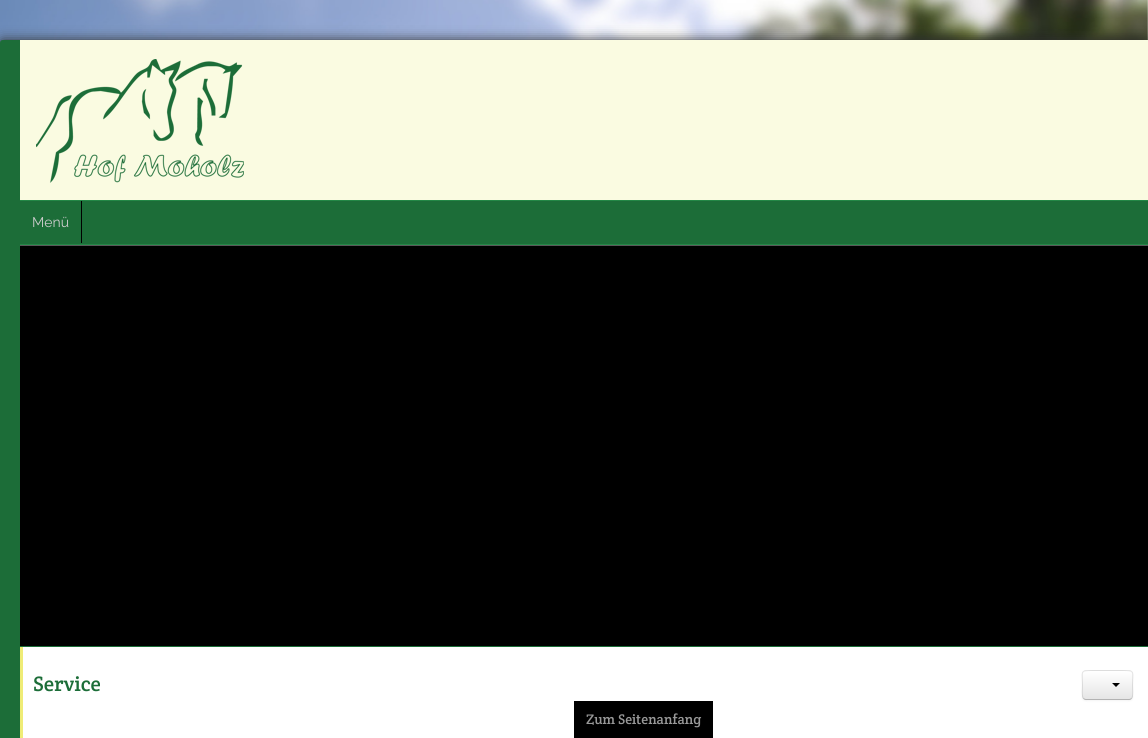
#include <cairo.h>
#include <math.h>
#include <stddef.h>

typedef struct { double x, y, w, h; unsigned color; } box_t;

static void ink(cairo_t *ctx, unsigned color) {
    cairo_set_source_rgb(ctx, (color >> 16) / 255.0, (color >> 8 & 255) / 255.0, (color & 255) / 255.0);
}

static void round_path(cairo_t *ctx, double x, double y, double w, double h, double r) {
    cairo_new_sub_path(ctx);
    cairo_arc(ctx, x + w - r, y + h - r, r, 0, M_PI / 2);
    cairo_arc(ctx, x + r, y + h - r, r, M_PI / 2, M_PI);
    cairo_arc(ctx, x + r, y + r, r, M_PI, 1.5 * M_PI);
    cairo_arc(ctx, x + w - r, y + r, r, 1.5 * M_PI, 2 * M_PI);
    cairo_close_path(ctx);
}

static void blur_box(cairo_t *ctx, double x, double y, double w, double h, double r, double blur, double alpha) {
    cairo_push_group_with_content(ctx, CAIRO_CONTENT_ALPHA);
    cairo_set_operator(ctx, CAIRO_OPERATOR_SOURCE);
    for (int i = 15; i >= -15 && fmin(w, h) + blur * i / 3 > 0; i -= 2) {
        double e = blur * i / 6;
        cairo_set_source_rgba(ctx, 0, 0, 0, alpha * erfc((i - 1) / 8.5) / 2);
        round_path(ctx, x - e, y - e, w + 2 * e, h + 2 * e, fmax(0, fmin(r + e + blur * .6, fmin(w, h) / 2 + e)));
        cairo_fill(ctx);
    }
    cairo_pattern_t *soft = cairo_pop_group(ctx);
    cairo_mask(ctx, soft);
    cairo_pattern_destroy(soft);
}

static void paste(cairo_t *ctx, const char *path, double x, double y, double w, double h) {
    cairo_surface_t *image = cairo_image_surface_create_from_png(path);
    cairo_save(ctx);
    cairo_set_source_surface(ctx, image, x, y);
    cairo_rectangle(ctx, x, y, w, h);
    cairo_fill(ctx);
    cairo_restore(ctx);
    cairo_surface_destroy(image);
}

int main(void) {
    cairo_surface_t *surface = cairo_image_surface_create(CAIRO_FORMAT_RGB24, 1148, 738);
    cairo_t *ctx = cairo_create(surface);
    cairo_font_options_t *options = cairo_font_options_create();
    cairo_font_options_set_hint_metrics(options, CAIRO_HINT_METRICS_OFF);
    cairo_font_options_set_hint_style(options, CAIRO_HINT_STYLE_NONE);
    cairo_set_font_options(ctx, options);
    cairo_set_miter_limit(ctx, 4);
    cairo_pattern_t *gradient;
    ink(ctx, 0xFFFFFF);
    cairo_paint(ctx);
    paste(ctx, "media/1.png", 0, 0, 1148, 43);
    ink(ctx, 0x333333);
    blur_box(ctx, 0, 40, 1148, 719, 3, 6, 1);
    ink(ctx, 0x1C6D38);
    cairo_set_fill_rule(ctx, CAIRO_FILL_RULE_EVEN_ODD);
    cairo_new_path(ctx);
    cairo_move_to(ctx, 3, 40);
    cairo_line_to(ctx, 1145, 40);
    cairo_curve_to(ctx, 1147, 40, 1148, 41, 1148, 43);
    cairo_line_to(ctx, 1148, 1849);
    cairo_curve_to(ctx, 1148, 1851, 1147, 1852, 1145, 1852);
    cairo_line_to(ctx, 3, 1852);
    cairo_curve_to(ctx, 1, 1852, 0, 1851, 0, 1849);
    cairo_line_to(ctx, 0, 43);
    cairo_curve_to(ctx, 0, 41, 1, 40, 3, 40);
    cairo_close_path(ctx);
    cairo_move_to(ctx, 20, 40);
    cairo_line_to(ctx, 1145, 40);
    cairo_curve_to(ctx, 1147, 40, 1148, 41, 1148, 43);
    cairo_line_to(ctx, 1148, 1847);
    cairo_line_to(ctx, 20, 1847);
    cairo_close_path(ctx);
    cairo_fill(ctx);
    ink(ctx, 0xFAFBE1);
    cairo_rectangle(ctx, 20, 40, 1128, 160);
    cairo_fill(ctx);
    paste(ctx, "media/2.png", 36, 59, 208, 124);
    {
        static const box_t items[] = {
            {20, 201, 1128, 43, 0x1C6D38},
            {20, 200, 1128, 1, 0x238746},
            {20, 244, 1128, 1, 0x238746},
            {81, 201, 1, 42, 0x000000},
        };
        for (size_t i = 0; i < sizeof items / sizeof *items; i++) {
            ink(ctx, items[i].color);
            cairo_rectangle(ctx, items[i].x, items[i].y, items[i].w, items[i].h);
            cairo_fill(ctx);
        }
    }
    cairo_select_font_face(ctx, "Raleway Thin", CAIRO_FONT_SLANT_NORMAL, CAIRO_FONT_WEIGHT_NORMAL);
    cairo_set_font_size(ctx, 14);
    ink(ctx, 0xCCCCCC);
    cairo_move_to(ctx, 32, 227);
    cairo_show_text(ctx, "Menü");
    {
        static const box_t items[] = {
            {20, 245, 1128, 1, 0x595959},
            {20, 646, 1128, 1, 0x1C6D38},
            {20, 246, 1128, 400, 0x000000},
            {20, 647, 3, 91, 0xEFEC76},
            {23, 647, 1125, 91, 0xFFFFFF},
        };
        for (size_t i = 0; i < sizeof items / sizeof *items; i++) {
            ink(ctx, items[i].color);
            cairo_rectangle(ctx, items[i].x, items[i].y, items[i].w, items[i].h);
            cairo_fill(ctx);
        }
    }
    cairo_select_font_face(ctx, "Crete Round", CAIRO_FONT_SLANT_NORMAL, CAIRO_FONT_WEIGHT_NORMAL);
    cairo_set_font_size(ctx, 21);
    ink(ctx, 0x1C6D38);
    cairo_move_to(ctx, 33, 691);
    cairo_show_text(ctx, "Service");
    ink(ctx, 0x000000);
    blur_box(ctx, 1082, 671, 51, 30, 4, 1, 0.05);
    ink(ctx, 0xF5F5F5);
    round_path(ctx, 1082, 670, 51, 30, 4);
    cairo_fill(ctx);
    cairo_save(ctx);
    cairo_set_fill_rule(ctx, CAIRO_FILL_RULE_WINDING);
    round_path(ctx, 1082, 670, 51, 30, 4);
    cairo_clip(ctx);
    gradient = cairo_pattern_create_linear(1108, 671, 1108, 699);
    cairo_pattern_add_color_stop_rgba(gradient, 0, 1, 1, 1, 1);
    cairo_pattern_add_color_stop_rgba(gradient, 1, 0.902, 0.902, 0.902, 1);
    cairo_set_source(ctx, gradient);
    cairo_pattern_destroy(gradient);
    cairo_rectangle(ctx, 1082, 671, 51, 28);
    cairo_fill(ctx);
    cairo_restore(ctx);
    ink(ctx, 0xFFFFFF);
    cairo_set_fill_rule(ctx, CAIRO_FILL_RULE_WINDING);
    cairo_new_path(ctx);
    cairo_move_to(ctx, 1086, 672);
    cairo_line_to(ctx, 1129, 672);
    cairo_curve_to(ctx, 1131, 672, 1132, 673, 1132, 675);
    cairo_curve_to(ctx, 1132, 669, 1126, 671, 1122, 671);
    cairo_line_to(ctx, 1093, 671);
    cairo_curve_to(ctx, 1089, 671, 1083, 669, 1083, 675);
    cairo_curve_to(ctx, 1083, 673, 1084, 672, 1086, 672);
    cairo_close_path(ctx);
    cairo_fill(ctx);
    cairo_new_path(ctx);
    cairo_move_to(ctx, 1131.5, 698.5);
    cairo_curve_to(ctx, 1131, 699, 1130, 699.5, 1129, 699.5);
    cairo_line_to(ctx, 1086, 699.5);
    cairo_curve_to(ctx, 1085, 699.5, 1084, 699, 1083.5, 698.5);
    ink(ctx, 0xB3B3B3);
    cairo_set_line_width(ctx, 1);
    cairo_stroke(ctx);
    cairo_new_path(ctx);
    cairo_move_to(ctx, 1083.5, 698.5);
    cairo_curve_to(ctx, 1081.5, 696.5, 1082.5, 688, 1082.5, 685);
    cairo_curve_to(ctx, 1082.5, 671, 1079.5, 670.5, 1093, 670.5);
    cairo_line_to(ctx, 1122, 670.5);
    cairo_curve_to(ctx, 1135.5, 670.5, 1132.5, 671, 1132.5, 685);
    cairo_curve_to(ctx, 1132.5, 688, 1133.5, 696.5, 1131.5, 698.5);
    cairo_set_source_rgba(ctx, 0, 0, 0, 0.1);
    cairo_stroke(ctx);
    ink(ctx, 0x000000);
    cairo_new_path(ctx);
    cairo_move_to(ctx, 1112, 683);
    cairo_line_to(ctx, 1120, 683);
    cairo_line_to(ctx, 1116, 687);
    cairo_close_path(ctx);
    cairo_fill(ctx);
    cairo_rectangle(ctx, 574, 701, 139, 37);
    cairo_fill(ctx);
    cairo_set_font_size(ctx, 14);
    ink(ctx, 0x999999);
    cairo_move_to(ctx, 586, 724);
    cairo_show_text(ctx, "Zum Seitenanfang");
    cairo_surface_write_to_png(surface, "image.png");
    cairo_font_options_destroy(options);
    cairo_destroy(ctx);
    cairo_surface_destroy(surface);
    return 0;
}
